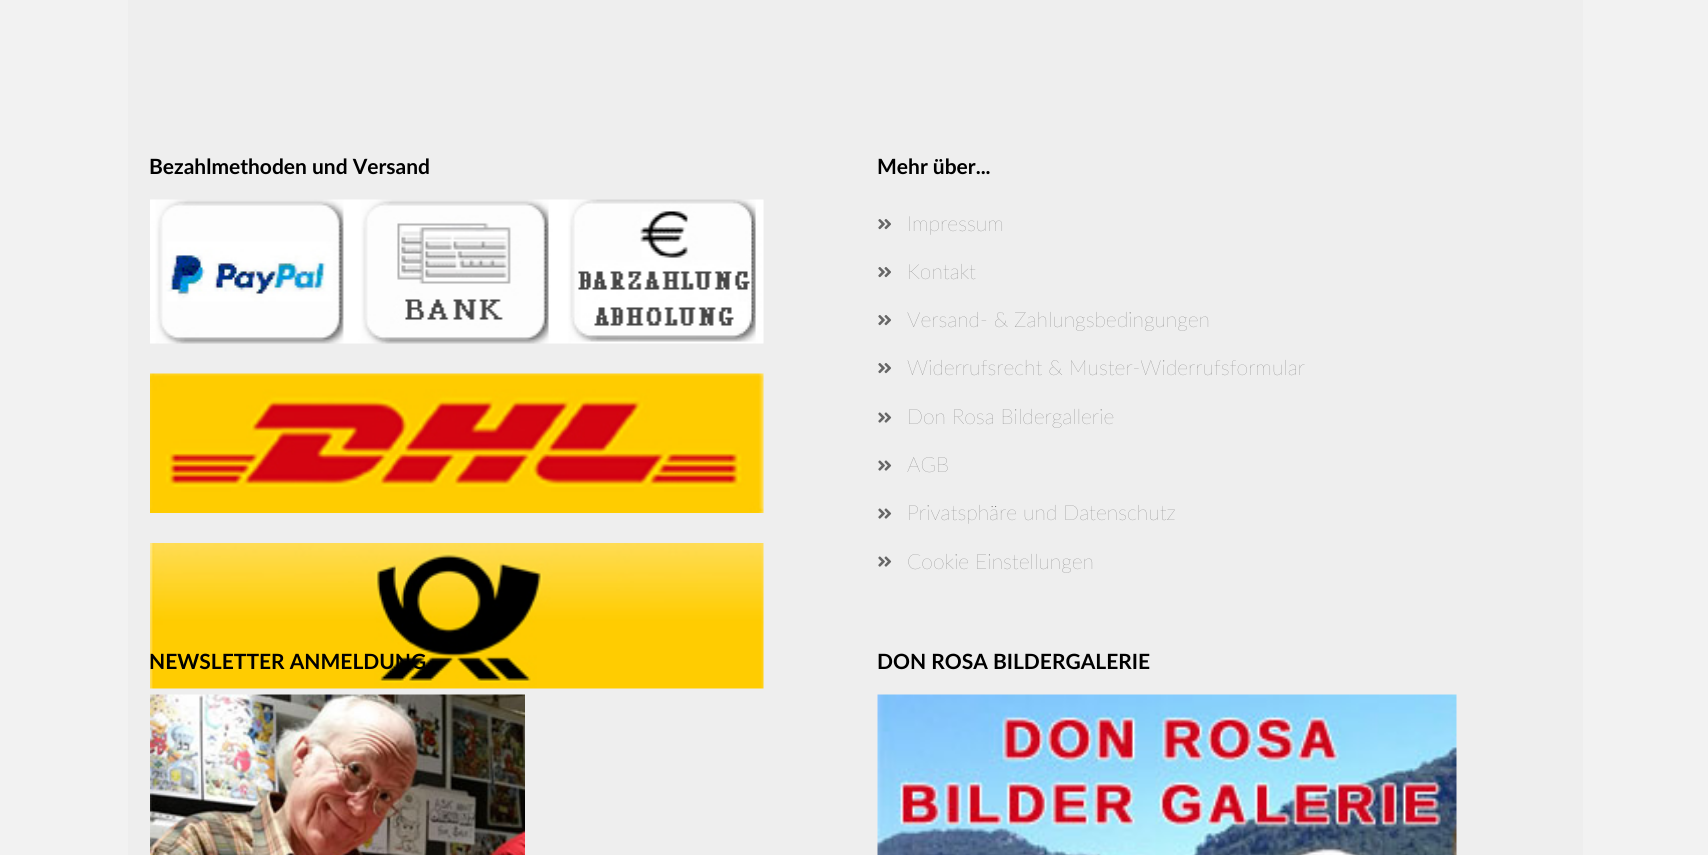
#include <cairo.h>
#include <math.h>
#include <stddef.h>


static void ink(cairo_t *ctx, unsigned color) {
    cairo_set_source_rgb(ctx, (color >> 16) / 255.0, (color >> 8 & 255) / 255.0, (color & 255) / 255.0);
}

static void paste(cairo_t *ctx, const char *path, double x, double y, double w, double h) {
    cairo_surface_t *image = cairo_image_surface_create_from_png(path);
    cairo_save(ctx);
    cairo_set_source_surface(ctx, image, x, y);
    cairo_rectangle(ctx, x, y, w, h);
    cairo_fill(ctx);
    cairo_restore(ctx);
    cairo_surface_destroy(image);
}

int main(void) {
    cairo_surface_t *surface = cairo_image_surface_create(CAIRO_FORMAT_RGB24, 1708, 855);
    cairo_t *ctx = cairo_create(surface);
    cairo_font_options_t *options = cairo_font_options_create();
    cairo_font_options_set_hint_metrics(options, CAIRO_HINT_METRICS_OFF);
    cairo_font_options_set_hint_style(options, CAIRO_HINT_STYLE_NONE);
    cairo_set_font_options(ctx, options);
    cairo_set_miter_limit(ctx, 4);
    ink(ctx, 0xF2F2F2);
    cairo_paint(ctx);
    ink(ctx, 0xEEEEEE);
    cairo_rectangle(ctx, 128, 0, 1455, 855);
    cairo_fill(ctx);
    cairo_select_font_face(ctx, "Lato", CAIRO_FONT_SLANT_NORMAL, CAIRO_FONT_WEIGHT_BOLD);
    cairo_set_font_size(ctx, 21);
    ink(ctx, 0x000000);
    cairo_move_to(ctx, 149, 174);
    cairo_show_text(ctx, "Bezahlmethoden und Versand");
    paste(ctx, "media/1.png", 150, 199, 614, 145);
    paste(ctx, "media/2.png", 150, 373, 614, 140);
    paste(ctx, "media/3.png", 150, 543, 614, 146);
    cairo_move_to(ctx, 877, 174);
    cairo_show_text(ctx, "Mehr über...");
    paste(ctx, "media/4.png", 878, 219, 13, 11);
    cairo_select_font_face(ctx, "Lato ExtraLight", CAIRO_FONT_SLANT_NORMAL, CAIRO_FONT_WEIGHT_NORMAL);
    ink(ctx, 0x666666);
    cairo_move_to(ctx, 907, 231);
    cairo_show_text(ctx, "Impressum");
    paste(ctx, "media/4.png", 878, 267, 13, 11);
    cairo_move_to(ctx, 907, 279);
    cairo_show_text(ctx, "Kontakt");
    paste(ctx, "media/4.png", 878, 315, 13, 11);
    cairo_move_to(ctx, 907, 327);
    cairo_show_text(ctx, "Versand- & Zahlungsbedingungen");
    paste(ctx, "media/4.png", 878, 363, 13, 11);
    cairo_move_to(ctx, 907, 375);
    cairo_show_text(ctx, "Widerrufsrecht & Muster-Widerrufsformular");
    paste(ctx, "media/5.png", 878, 412, 14, 11);
    cairo_move_to(ctx, 907, 424);
    cairo_show_text(ctx, "Don Rosa Bildergallerie");
    paste(ctx, "media/5.png", 878, 460, 14, 11);
    cairo_move_to(ctx, 907, 472);
    cairo_show_text(ctx, "AGB");
    paste(ctx, "media/5.png", 878, 508, 14, 11);
    cairo_move_to(ctx, 907, 520);
    cairo_show_text(ctx, "Privatsphäre und Datenschutz");
    paste(ctx, "media/5.png", 878, 556, 14, 11);
    cairo_move_to(ctx, 907, 569);
    cairo_show_text(ctx, "Cookie Einstellungen");
    cairo_select_font_face(ctx, "Lato", CAIRO_FONT_SLANT_NORMAL, CAIRO_FONT_WEIGHT_BOLD);
    ink(ctx, 0x000000);
    cairo_move_to(ctx, 149, 669);
    cairo_show_text(ctx, "NEWSLETTER ANMELDUNG");
    paste(ctx, "media/6.png", 150, 694, 375, 161);
    cairo_move_to(ctx, 877, 669);
    cairo_show_text(ctx, "DON ROSA BILDERGALERIE");
    paste(ctx, "media/7.png", 877, 694, 580, 161);
    cairo_surface_write_to_png(surface, "image.png");
    cairo_font_options_destroy(options);
    cairo_destroy(ctx);
    cairo_surface_destroy(surface);
    return 0;
}
